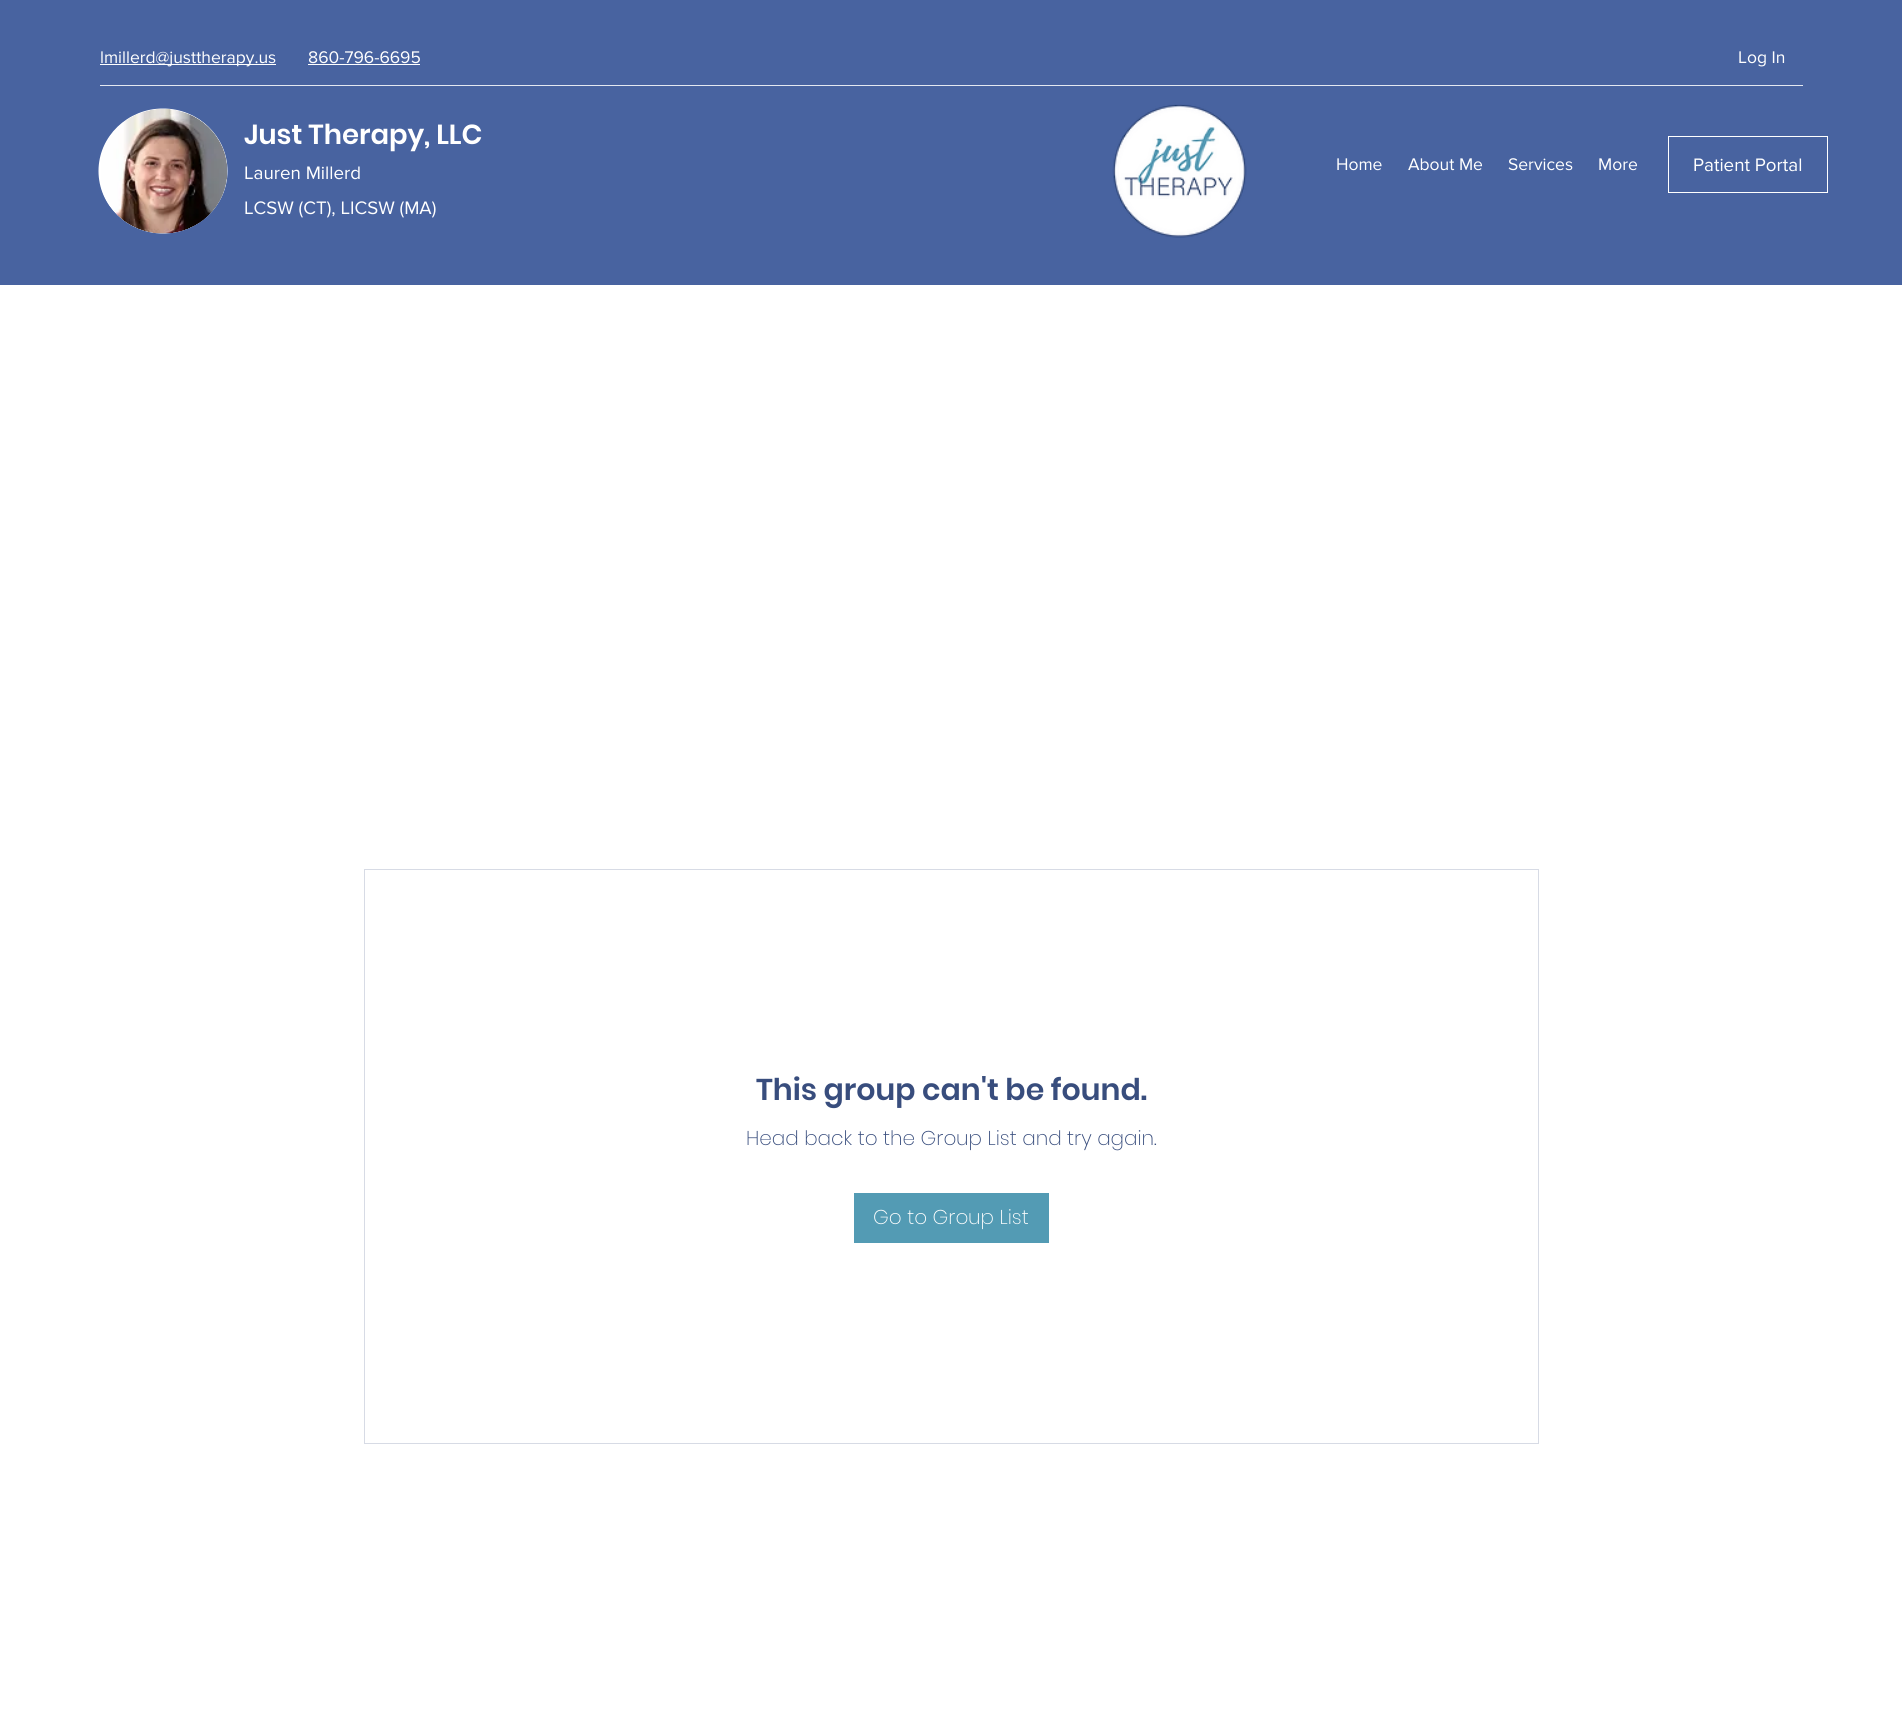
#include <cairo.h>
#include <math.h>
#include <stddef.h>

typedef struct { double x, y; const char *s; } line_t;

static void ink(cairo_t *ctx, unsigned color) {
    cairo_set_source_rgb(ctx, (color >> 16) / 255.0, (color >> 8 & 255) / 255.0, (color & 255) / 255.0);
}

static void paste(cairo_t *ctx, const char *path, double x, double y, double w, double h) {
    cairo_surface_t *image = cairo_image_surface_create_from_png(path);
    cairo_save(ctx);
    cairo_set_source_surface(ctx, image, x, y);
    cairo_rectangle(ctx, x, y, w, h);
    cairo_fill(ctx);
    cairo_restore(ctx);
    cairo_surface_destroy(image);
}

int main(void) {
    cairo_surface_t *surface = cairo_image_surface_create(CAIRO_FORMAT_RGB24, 1902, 1727);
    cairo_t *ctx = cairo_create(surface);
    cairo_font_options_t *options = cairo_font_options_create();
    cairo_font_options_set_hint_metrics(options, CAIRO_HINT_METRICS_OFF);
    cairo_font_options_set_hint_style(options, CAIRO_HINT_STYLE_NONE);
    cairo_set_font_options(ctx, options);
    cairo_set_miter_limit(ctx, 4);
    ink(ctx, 0xFFFFFF);
    cairo_paint(ctx);
    ink(ctx, 0x4863A0);
    cairo_rectangle(ctx, 0, 0, 1902, 285);
    cairo_fill(ctx);
    ink(ctx, 0xFFFFFF);
    cairo_rectangle(ctx, 100, 64, 176, 1);
    cairo_fill(ctx);
    cairo_select_font_face(ctx, "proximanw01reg", CAIRO_FONT_SLANT_NORMAL, CAIRO_FONT_WEIGHT_NORMAL);
    cairo_set_font_size(ctx, 17.5);
    cairo_move_to(ctx, 100, 63);
    cairo_show_text(ctx, "lmillerd@justtherapy.us");
    cairo_move_to(ctx, 308, 63);
    cairo_show_text(ctx, "860-796-6695");
    cairo_rectangle(ctx, 308, 64, 112, 1);
    cairo_fill(ctx);
    cairo_move_to(ctx, 1738, 63);
    cairo_show_text(ctx, "Log In");
    ink(ctx, 0xE4E8F1);
    cairo_rectangle(ctx, 100, 85, 1703, 1);
    cairo_fill(ctx);
    ink(ctx, 0xFFFFFF);
    cairo_new_path(ctx);
    cairo_move_to(ctx, 163, 108.5);
    cairo_curve_to(ctx, 198.5, 108.5, 227.5, 136.5, 227.5, 171);
    cairo_curve_to(ctx, 227.5, 205.5, 198.5, 233.5, 163, 233.5);
    cairo_curve_to(ctx, 127.5, 233.5, 98.5, 205.5, 98.5, 171);
    cairo_curve_to(ctx, 98.5, 136.5, 127.5, 108.5, 163, 108.5);
    cairo_close_path(ctx);
    cairo_fill(ctx);
    paste(ctx, "media/1.png", 101, 109, 126, 125);
    cairo_select_font_face(ctx, "Poppins SemiBold", CAIRO_FONT_SLANT_NORMAL, CAIRO_FONT_WEIGHT_NORMAL);
    cairo_set_font_size(ctx, 27.5);
    cairo_move_to(ctx, 244, 144);
    cairo_show_text(ctx, "Just Therapy, LLC");
    cairo_select_font_face(ctx, "proximanw01reg", CAIRO_FONT_SLANT_NORMAL, CAIRO_FONT_WEIGHT_NORMAL);
    cairo_set_font_size(ctx, 18.75);
    cairo_move_to(ctx, 244, 179);
    cairo_show_text(ctx, "Lauren Millerd");
    cairo_move_to(ctx, 244, 214);
    cairo_show_text(ctx, "LCSW (CT), LICSW (MA)");
    paste(ctx, "media/2.png", 1112, 104, 135, 134);
    cairo_set_font_size(ctx, 17.5);
    {
        static const line_t items[] = {
            {1336, 170, "Home"},
            {1408, 170, "About Me"},
            {1508, 170, "Services"},
            {1598, 170, "More"},
        };
        for (size_t i = 0; i < sizeof items / sizeof *items; i++) {
            cairo_move_to(ctx, items[i].x, items[i].y);
            cairo_show_text(ctx, items[i].s);
        }
    }
    cairo_rectangle(ctx, 1668.5, 136.5, 159, 56);
    cairo_set_line_width(ctx, 1);
    cairo_stroke(ctx);
    cairo_set_font_size(ctx, 18.75);
    cairo_move_to(ctx, 1693, 171);
    cairo_show_text(ctx, "Patient Portal");
    cairo_rectangle(ctx, 364.5, 869.5, 1174, 574);
    ink(ctx, 0xD7DBE5);
    cairo_stroke(ctx);
    cairo_select_font_face(ctx, "Poppins SemiBold", CAIRO_FONT_SLANT_NORMAL, CAIRO_FONT_WEIGHT_NORMAL);
    cairo_set_font_size(ctx, 30);
    ink(ctx, 0x384D7D);
    cairo_move_to(ctx, 756, 1100);
    cairo_show_text(ctx, "This group can't be found.");
    cairo_select_font_face(ctx, "Poppins ExtraLight", CAIRO_FONT_SLANT_NORMAL, CAIRO_FONT_WEIGHT_NORMAL);
    cairo_set_font_size(ctx, 20);
    cairo_move_to(ctx, 746, 1145);
    cairo_show_text(ctx, "Head back to the Group List and try again.");
    ink(ctx, 0x539BB4);
    cairo_rectangle(ctx, 854, 1193, 195, 50);
    cairo_fill(ctx);
    ink(ctx, 0xFFFFFF);
    cairo_move_to(ctx, 873, 1224);
    cairo_show_text(ctx, "Go to Group List");
    cairo_surface_write_to_png(surface, "image.png");
    cairo_font_options_destroy(options);
    cairo_destroy(ctx);
    cairo_surface_destroy(surface);
    return 0;
}
